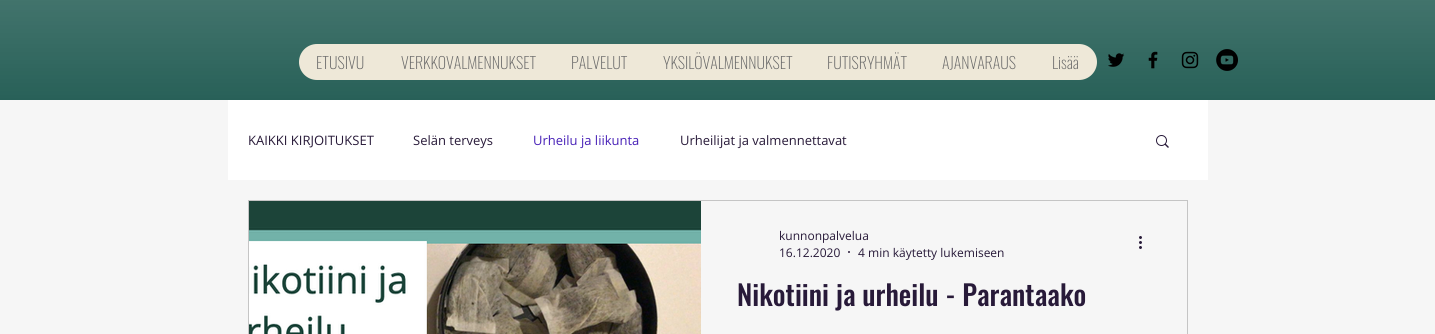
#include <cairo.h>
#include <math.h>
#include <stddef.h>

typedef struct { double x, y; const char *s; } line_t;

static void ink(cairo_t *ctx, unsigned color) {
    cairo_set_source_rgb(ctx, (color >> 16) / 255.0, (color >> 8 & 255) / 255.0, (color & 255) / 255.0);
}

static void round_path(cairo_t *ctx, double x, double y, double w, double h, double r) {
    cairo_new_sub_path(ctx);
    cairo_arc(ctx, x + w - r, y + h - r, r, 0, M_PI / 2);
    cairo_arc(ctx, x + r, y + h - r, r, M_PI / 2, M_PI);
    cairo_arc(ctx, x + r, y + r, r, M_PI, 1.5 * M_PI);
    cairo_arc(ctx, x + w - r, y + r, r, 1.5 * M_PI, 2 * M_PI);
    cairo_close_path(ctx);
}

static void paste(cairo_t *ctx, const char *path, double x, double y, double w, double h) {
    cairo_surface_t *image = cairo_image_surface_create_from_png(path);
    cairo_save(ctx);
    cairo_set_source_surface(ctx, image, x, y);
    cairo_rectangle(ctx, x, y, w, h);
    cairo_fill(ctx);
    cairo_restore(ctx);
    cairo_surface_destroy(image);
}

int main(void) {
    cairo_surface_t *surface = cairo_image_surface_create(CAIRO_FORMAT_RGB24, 1435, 334);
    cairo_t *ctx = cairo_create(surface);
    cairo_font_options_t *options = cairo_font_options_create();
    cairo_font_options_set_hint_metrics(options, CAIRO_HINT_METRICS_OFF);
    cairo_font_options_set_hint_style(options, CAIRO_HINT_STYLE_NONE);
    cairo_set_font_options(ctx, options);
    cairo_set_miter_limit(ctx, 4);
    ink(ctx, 0xF6F6F6);
    cairo_paint(ctx);
    ink(ctx, 0x004339);
    cairo_rectangle(ctx, 0, 0, 1435, 100);
    cairo_fill(ctx);
    paste(ctx, "media/1.png", 0, 0, 1435, 100);
    ink(ctx, 0xEEE8D8);
    round_path(ctx, 299, 44, 798, 36, 18);
    cairo_fill(ctx);
    cairo_select_font_face(ctx, "Oswald ExtraLight", CAIRO_FONT_SLANT_NORMAL, CAIRO_FONT_WEIGHT_NORMAL);
    cairo_set_font_size(ctx, 16);
    ink(ctx, 0x696969);
    {
        static const line_t items[] = {
            {316, 69, "ETUSIVU"},
            {401, 69, "VERKKOVALMENNUKSET"},
            {571, 69, "PALVELUT"},
            {663, 69, "YKSILÖVALMENNUKSET"},
            {827, 69, "FUTISRYHMÄT"},
            {942, 69, "AJANVARAUS"},
            {1052, 69, "Lisää"},
        };
        for (size_t i = 0; i < sizeof items / sizeof *items; i++) {
            cairo_move_to(ctx, items[i].x, items[i].y);
            cairo_show_text(ctx, items[i].s);
        }
    }
    paste(ctx, "media/2.png", 1108, 53, 17, 14);
    paste(ctx, "media/3.png", 1148, 51, 10, 18);
    paste(ctx, "media/4.png", 1181, 51, 18, 18);
    paste(ctx, "media/5.png", 1216, 49, 22, 22);
    ink(ctx, 0xFFFFFF);
    cairo_rectangle(ctx, 228, 100, 980, 80);
    cairo_fill(ctx);
    cairo_select_font_face(ctx, "Open Sans", CAIRO_FONT_SLANT_NORMAL, CAIRO_FONT_WEIGHT_NORMAL);
    cairo_set_font_size(ctx, 13);
    ink(ctx, 0x281A39);
    cairo_move_to(ctx, 248, 145);
    cairo_show_text(ctx, "KAIKKI KIRJOITUKSET");
    cairo_move_to(ctx, 413, 145);
    cairo_show_text(ctx, "Selän terveys");
    ink(ctx, 0x4720B7);
    cairo_move_to(ctx, 533, 145);
    cairo_show_text(ctx, "Urheilu ja liikunta");
    ink(ctx, 0x281A39);
    cairo_move_to(ctx, 680, 145);
    cairo_show_text(ctx, "Urheilijat ja valmennettavat");
    paste(ctx, "media/6.png", 1156, 135, 13, 13);
    cairo_rectangle(ctx, 248.5, 200.5, 939, 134);
    ink(ctx, 0xC5C5C5);
    cairo_set_line_width(ctx, 1);
    cairo_stroke(ctx);
    paste(ctx, "media/7.png", 249, 201, 452, 133);
    cairo_set_font_size(ctx, 12);
    ink(ctx, 0x281A39);
    cairo_move_to(ctx, 779, 240);
    cairo_show_text(ctx, "kunnonpalvelua");
    cairo_move_to(ctx, 779, 257);
    cairo_show_text(ctx, "16.12.2020");
    cairo_new_path(ctx);
    cairo_arc(ctx, 849, 252, 1, 0, 2 * M_PI);
    cairo_fill(ctx);
    cairo_move_to(ctx, 858, 257);
    cairo_show_text(ctx, "4 min käytetty lukemiseen");
    paste(ctx, "media/8.png", 1139, 236, 3, 13);
    cairo_select_font_face(ctx, "Oswald Medium", CAIRO_FONT_SLANT_NORMAL, CAIRO_FONT_WEIGHT_NORMAL);
    cairo_set_font_size(ctx, 28);
    cairo_move_to(ctx, 737, 306);
    cairo_show_text(ctx, "Nikotiini ja urheilu - Parantaako");
    cairo_surface_write_to_png(surface, "image.png");
    cairo_font_options_destroy(options);
    cairo_destroy(ctx);
    cairo_surface_destroy(surface);
    return 0;
}
